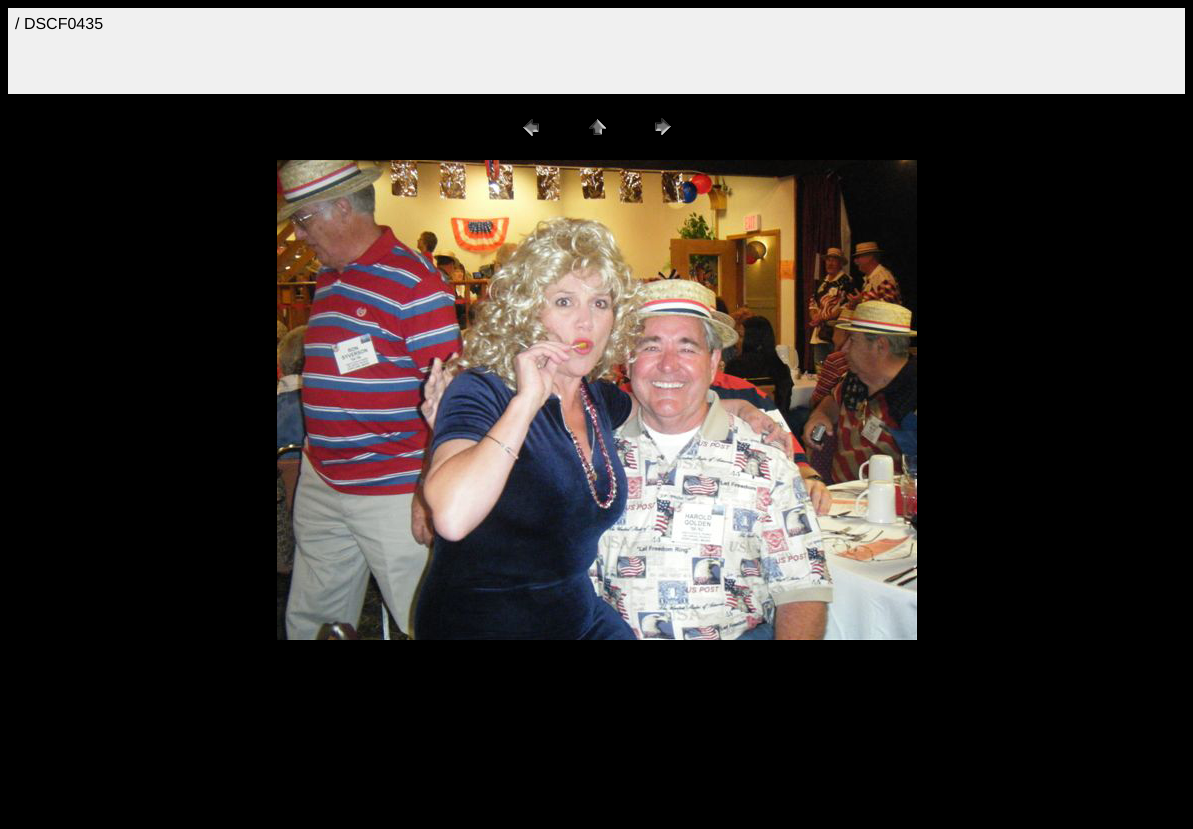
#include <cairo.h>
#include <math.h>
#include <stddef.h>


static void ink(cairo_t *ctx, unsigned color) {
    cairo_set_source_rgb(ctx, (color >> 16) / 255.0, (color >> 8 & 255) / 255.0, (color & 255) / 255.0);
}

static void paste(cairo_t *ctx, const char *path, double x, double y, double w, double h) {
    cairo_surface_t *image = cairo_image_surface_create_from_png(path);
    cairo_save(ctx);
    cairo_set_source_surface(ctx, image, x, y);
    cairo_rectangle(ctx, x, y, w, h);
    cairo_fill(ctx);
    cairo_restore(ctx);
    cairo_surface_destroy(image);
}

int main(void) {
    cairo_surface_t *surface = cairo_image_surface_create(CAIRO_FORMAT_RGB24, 1193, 829);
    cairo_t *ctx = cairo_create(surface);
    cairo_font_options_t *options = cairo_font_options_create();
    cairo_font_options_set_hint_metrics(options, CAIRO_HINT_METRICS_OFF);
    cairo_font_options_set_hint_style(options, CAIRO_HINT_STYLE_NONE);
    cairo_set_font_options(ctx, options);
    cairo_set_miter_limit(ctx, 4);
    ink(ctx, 0x000000);
    cairo_paint(ctx);
    ink(ctx, 0xF0F0F0);
    cairo_rectangle(ctx, 8, 8, 1177, 86);
    cairo_fill(ctx);
    cairo_select_font_face(ctx, "Liberation Sans", CAIRO_FONT_SLANT_NORMAL, CAIRO_FONT_WEIGHT_NORMAL);
    cairo_set_font_size(ctx, 16);
    ink(ctx, 0x000000);
    cairo_move_to(ctx, 15, 29);
    cairo_show_text(ctx, "/ DSCF0435");
    paste(ctx, "media/1.png", 523, 119, 16, 17);
    paste(ctx, "media/2.png", 589, 119, 17, 16);
    paste(ctx, "media/3.png", 655, 118, 16, 17);
    paste(ctx, "media/4.png", 277, 160, 640, 480);
    cairo_surface_write_to_png(surface, "image.png");
    cairo_font_options_destroy(options);
    cairo_destroy(ctx);
    cairo_surface_destroy(surface);
    return 0;
}
